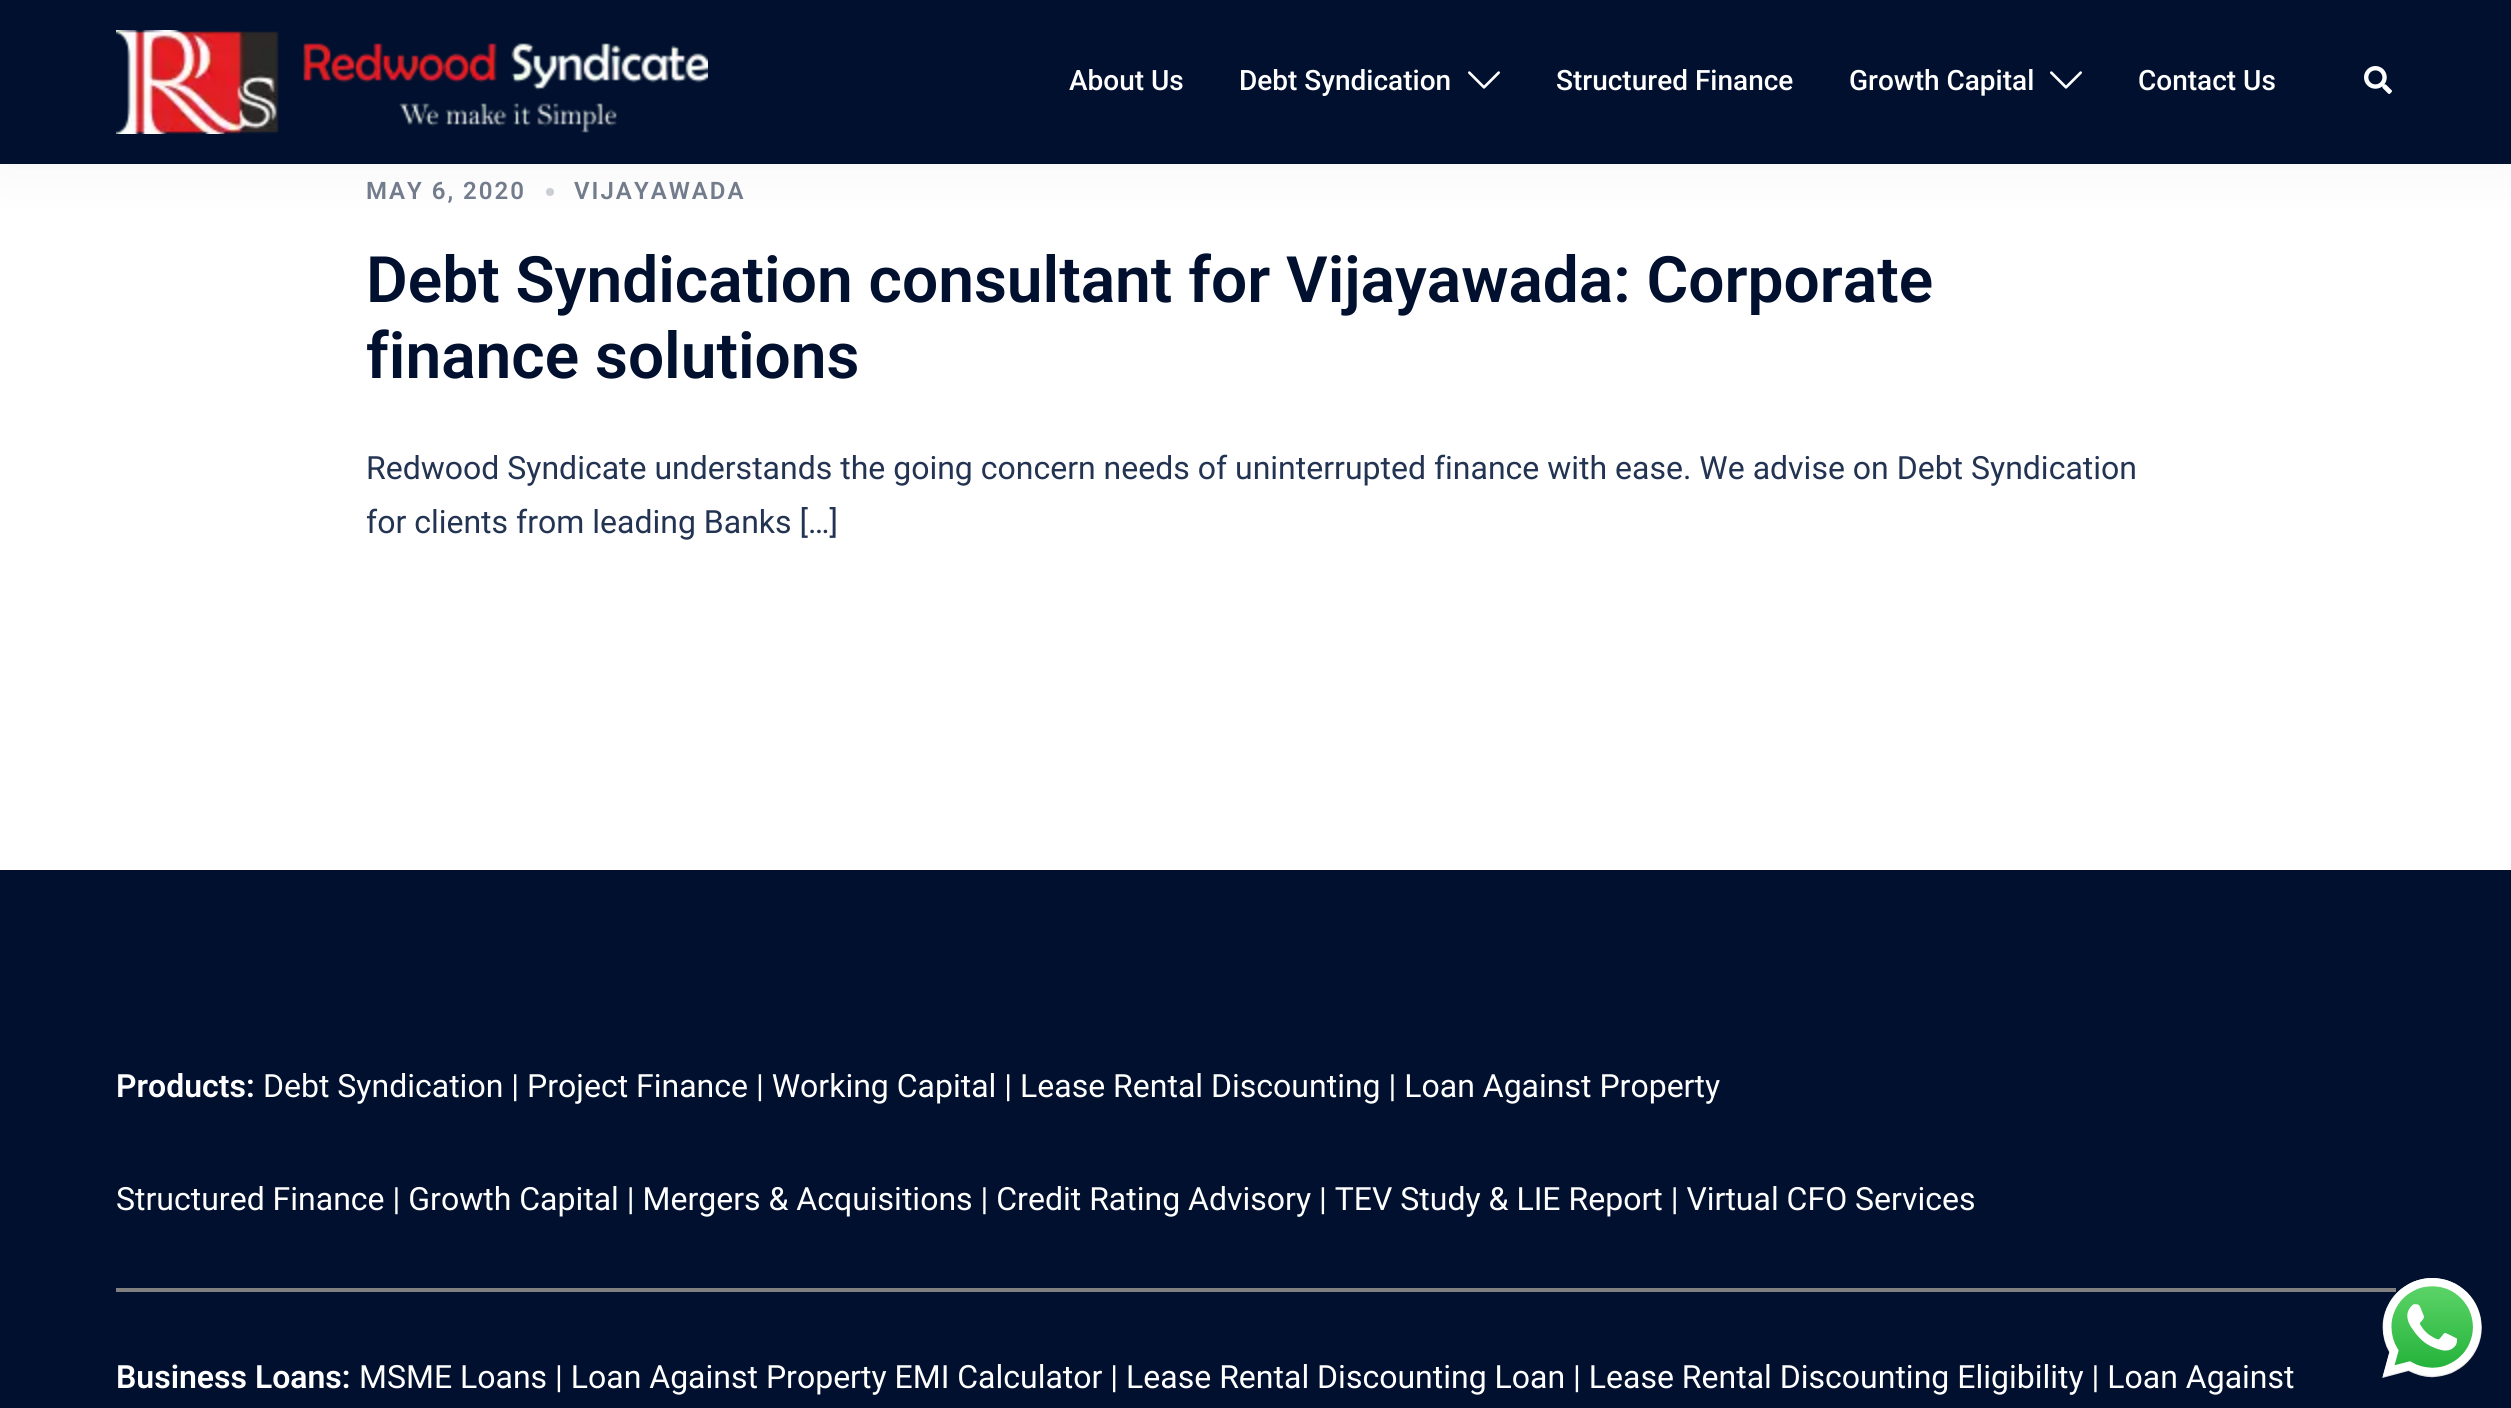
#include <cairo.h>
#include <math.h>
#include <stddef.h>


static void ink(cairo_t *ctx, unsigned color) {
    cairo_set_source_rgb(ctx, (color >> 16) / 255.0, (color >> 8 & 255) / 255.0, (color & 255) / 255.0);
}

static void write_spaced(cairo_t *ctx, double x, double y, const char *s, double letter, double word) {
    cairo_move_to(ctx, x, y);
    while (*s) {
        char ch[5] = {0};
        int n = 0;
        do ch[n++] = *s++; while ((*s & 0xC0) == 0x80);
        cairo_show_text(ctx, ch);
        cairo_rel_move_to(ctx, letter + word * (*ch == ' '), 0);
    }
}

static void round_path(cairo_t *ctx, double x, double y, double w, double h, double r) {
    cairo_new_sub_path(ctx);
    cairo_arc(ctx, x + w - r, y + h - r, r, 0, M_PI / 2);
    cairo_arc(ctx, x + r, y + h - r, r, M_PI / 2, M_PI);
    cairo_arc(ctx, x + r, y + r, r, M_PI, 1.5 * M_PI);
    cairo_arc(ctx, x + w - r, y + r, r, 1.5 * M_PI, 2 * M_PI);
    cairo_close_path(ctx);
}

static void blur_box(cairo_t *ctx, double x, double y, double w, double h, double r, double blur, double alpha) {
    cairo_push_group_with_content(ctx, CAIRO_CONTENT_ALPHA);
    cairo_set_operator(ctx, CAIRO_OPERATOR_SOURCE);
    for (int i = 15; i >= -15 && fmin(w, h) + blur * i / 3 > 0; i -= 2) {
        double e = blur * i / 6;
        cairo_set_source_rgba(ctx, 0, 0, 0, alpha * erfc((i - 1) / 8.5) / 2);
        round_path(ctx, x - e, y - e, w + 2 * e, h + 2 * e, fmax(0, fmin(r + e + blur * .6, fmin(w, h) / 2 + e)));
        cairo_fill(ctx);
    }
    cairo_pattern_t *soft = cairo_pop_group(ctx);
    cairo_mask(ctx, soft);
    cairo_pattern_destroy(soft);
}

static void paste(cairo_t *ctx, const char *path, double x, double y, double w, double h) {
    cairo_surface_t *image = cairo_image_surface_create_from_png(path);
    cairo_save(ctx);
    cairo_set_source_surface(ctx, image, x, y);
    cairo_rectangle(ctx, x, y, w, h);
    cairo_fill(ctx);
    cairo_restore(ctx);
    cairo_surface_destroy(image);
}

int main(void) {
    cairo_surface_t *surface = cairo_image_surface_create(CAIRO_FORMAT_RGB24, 2511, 1408);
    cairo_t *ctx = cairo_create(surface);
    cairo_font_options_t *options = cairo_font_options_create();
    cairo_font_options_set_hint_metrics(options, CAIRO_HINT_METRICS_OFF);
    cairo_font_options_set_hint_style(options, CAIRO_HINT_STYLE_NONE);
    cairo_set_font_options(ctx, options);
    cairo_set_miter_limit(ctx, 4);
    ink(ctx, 0xFFFFFF);
    cairo_paint(ctx);
    ink(ctx, 0xCCCFD5);
    cairo_arc(ctx, 550, 192, 4, 0, 2 * M_PI);
    cairo_fill(ctx);
    ink(ctx, 0x000000);
    blur_box(ctx, 0, 0, 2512, 164, 0, 30, 0.05);
    ink(ctx, 0x00102E);
    cairo_rectangle(ctx, 0, 0, 2511, 164);
    cairo_fill(ctx);
    paste(ctx, "media/1.png", 116, 30, 592, 104);
    cairo_select_font_face(ctx, "Roboto Medium", CAIRO_FONT_SLANT_NORMAL, CAIRO_FONT_WEIGHT_NORMAL);
    cairo_set_font_size(ctx, 28);
    ink(ctx, 0xFFFFFF);
    cairo_move_to(ctx, 1069, 90);
    cairo_show_text(ctx, "About Us");
    cairo_move_to(ctx, 1239, 90);
    cairo_show_text(ctx, "Debt Syndication");
    paste(ctx, "media/2.png", 1468, 71, 32, 18);
    cairo_move_to(ctx, 1556, 90);
    cairo_show_text(ctx, "Structured Finance");
    cairo_move_to(ctx, 1849, 90);
    cairo_show_text(ctx, "Growth Capital");
    paste(ctx, "media/2.png", 2050, 71, 32, 18);
    cairo_move_to(ctx, 2138, 90);
    cairo_show_text(ctx, "Contact Us");
    paste(ctx, "media/3.png", 2364, 66, 28, 28);
    cairo_select_font_face(ctx, "Roboto SemiBold", CAIRO_FONT_SLANT_NORMAL, CAIRO_FONT_WEIGHT_NORMAL);
    cairo_set_font_size(ctx, 24);
    ink(ctx, 0x737C8C);
    write_spaced(ctx, 366, 199, "MAY 6, 2020", 2, 0);
    write_spaced(ctx, 574, 199, "VIJAYAWADA", 2, 0);
    cairo_set_font_size(ctx, 64);
    ink(ctx, 0x00102E);
    cairo_move_to(ctx, 366, 302);
    cairo_show_text(ctx, "Debt Syndication consultant for Vijayawada: Corporate");
    cairo_move_to(ctx, 366, 378);
    cairo_show_text(ctx, "finance solutions");
    cairo_select_font_face(ctx, "Roboto", CAIRO_FONT_SLANT_NORMAL, CAIRO_FONT_WEIGHT_NORMAL);
    cairo_set_font_size(ctx, 32);
    ink(ctx, 0x233452);
    cairo_move_to(ctx, 366, 479);
    cairo_show_text(ctx, "Redwood Syndicate understands the going concern needs of uninterrupted finance with ease. We advise on Debt Syndication");
    cairo_move_to(ctx, 366, 533);
    cairo_show_text(ctx, "for clients from leading Banks […]");
    ink(ctx, 0x00102E);
    cairo_rectangle(ctx, 0, 870, 2511, 538);
    cairo_fill(ctx);
    cairo_select_font_face(ctx, "Roboto SemiBold", CAIRO_FONT_SLANT_NORMAL, CAIRO_FONT_WEIGHT_NORMAL);
    ink(ctx, 0xFFFFFF);
    cairo_move_to(ctx, 116, 1097);
    cairo_show_text(ctx, "Products:");
    cairo_select_font_face(ctx, "Roboto", CAIRO_FONT_SLANT_NORMAL, CAIRO_FONT_WEIGHT_NORMAL);
    cairo_move_to(ctx, 263, 1097);
    cairo_show_text(ctx, "Debt Syndication | Project Finance | Working Capital | Lease Rental Discounting | Loan Against Property");
    cairo_move_to(ctx, 116, 1210);
    cairo_show_text(ctx, "Structured Finance | Growth Capital | Mergers & Acquisitions | Credit Rating Advisory | TEV Study & LIE Report | Virtual CFO Services");
    ink(ctx, 0x808080);
    cairo_rectangle(ctx, 116, 1288, 2280, 4);
    cairo_fill(ctx);
    cairo_select_font_face(ctx, "Roboto SemiBold", CAIRO_FONT_SLANT_NORMAL, CAIRO_FONT_WEIGHT_NORMAL);
    ink(ctx, 0xFFFFFF);
    cairo_move_to(ctx, 116, 1388);
    cairo_show_text(ctx, "Business Loans:");
    cairo_select_font_face(ctx, "Roboto", CAIRO_FONT_SLANT_NORMAL, CAIRO_FONT_WEIGHT_NORMAL);
    cairo_move_to(ctx, 359, 1388);
    cairo_show_text(ctx, "MSME Loans | Loan Against Property EMI Calculator | Lease Rental Discounting Loan | Lease Rental Discounting Eligibility | Loan Against");
    paste(ctx, "media/4.png", 2382, 1278, 100, 100);
    cairo_surface_write_to_png(surface, "image.png");
    cairo_font_options_destroy(options);
    cairo_destroy(ctx);
    cairo_surface_destroy(surface);
    return 0;
}
